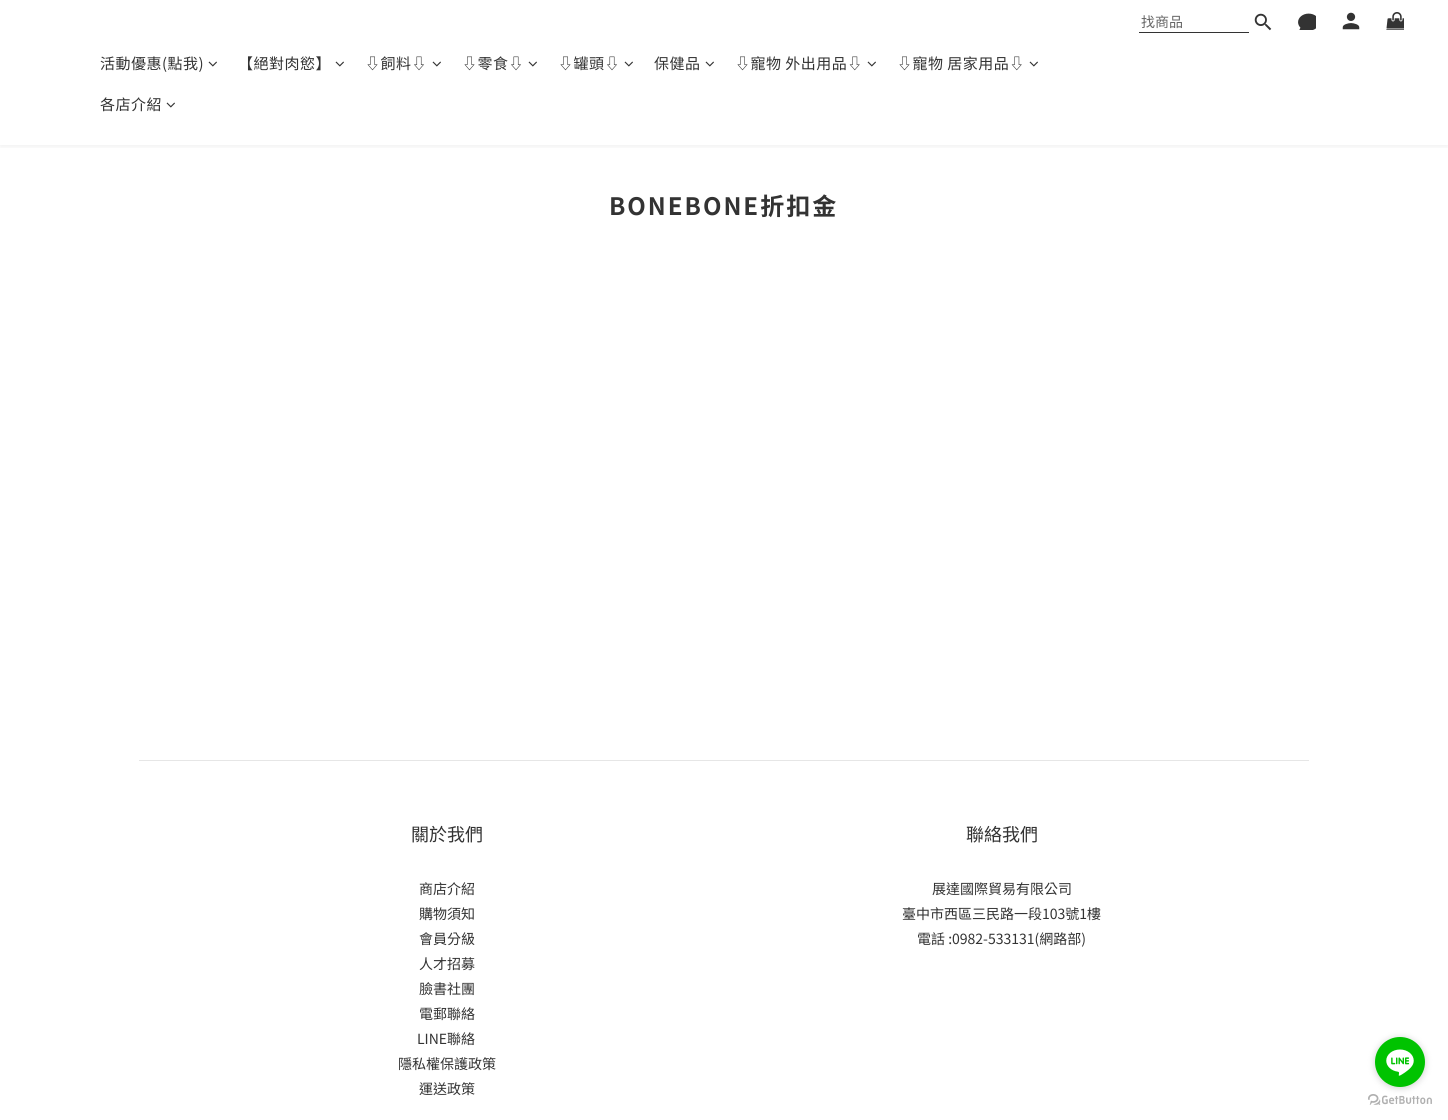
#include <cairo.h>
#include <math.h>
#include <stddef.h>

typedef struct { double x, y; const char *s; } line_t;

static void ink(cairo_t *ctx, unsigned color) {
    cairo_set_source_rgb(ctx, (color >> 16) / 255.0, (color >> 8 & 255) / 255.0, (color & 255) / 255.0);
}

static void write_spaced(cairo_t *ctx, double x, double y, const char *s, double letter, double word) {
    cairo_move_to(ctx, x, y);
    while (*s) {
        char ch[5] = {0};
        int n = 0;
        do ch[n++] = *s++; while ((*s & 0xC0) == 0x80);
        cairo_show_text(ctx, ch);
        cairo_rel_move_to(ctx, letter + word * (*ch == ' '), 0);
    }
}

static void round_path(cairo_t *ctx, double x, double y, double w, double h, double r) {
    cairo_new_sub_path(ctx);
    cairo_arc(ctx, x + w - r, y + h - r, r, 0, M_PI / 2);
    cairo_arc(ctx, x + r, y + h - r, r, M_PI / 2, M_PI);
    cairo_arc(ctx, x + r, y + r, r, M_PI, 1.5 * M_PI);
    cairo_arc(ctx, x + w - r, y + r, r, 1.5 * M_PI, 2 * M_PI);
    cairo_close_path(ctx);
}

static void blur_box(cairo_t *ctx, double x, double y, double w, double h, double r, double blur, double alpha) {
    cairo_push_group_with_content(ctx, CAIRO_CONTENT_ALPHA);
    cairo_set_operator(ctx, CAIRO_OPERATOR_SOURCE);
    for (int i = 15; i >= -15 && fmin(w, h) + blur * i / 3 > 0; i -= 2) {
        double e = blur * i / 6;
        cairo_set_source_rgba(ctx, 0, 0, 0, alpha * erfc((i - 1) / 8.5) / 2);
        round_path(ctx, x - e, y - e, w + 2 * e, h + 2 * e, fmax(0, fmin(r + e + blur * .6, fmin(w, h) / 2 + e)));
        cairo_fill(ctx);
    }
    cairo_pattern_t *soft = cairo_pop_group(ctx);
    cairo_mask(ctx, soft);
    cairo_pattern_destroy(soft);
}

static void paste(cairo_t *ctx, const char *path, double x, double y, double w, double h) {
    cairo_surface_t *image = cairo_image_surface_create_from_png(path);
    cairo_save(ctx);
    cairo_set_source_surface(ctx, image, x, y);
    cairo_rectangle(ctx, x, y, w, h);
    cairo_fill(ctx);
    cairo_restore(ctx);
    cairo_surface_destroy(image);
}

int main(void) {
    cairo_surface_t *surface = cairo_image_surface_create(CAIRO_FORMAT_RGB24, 1448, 1120);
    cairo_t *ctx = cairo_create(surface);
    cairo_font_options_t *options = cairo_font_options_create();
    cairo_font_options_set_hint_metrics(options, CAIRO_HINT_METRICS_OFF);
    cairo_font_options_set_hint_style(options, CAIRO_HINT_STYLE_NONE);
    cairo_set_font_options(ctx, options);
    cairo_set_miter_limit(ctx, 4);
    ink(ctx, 0xFFFFFF);
    cairo_paint(ctx);
    cairo_save(ctx);
    cairo_rectangle(ctx, 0, 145, 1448, 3);
    cairo_clip(ctx);
    ink(ctx, 0x000000);
    blur_box(ctx, 0, 2, 1448, 145, 0, 3, 0.06);
    cairo_restore(ctx);
    ink(ctx, 0x333333);
    cairo_rectangle(ctx, 1139, 32, 110, 1);
    cairo_fill(ctx);
    cairo_select_font_face(ctx, "Noto Sans TC", CAIRO_FONT_SLANT_NORMAL, CAIRO_FONT_WEIGHT_NORMAL);
    cairo_set_font_size(ctx, 14);
    ink(ctx, 0x666666);
    cairo_move_to(ctx, 1141, 27);
    cairo_show_text(ctx, "找商品");
    paste(ctx, "media/1.png", 1254, 13, 18, 18);
    paste(ctx, "media/2.png", 1298, 13, 18, 17);
    paste(ctx, "media/3.png", 1342, 12, 18, 18);
    paste(ctx, "media/4.png", 1386, 12, 18, 18);
    cairo_set_font_size(ctx, 15);
    ink(ctx, 0x333333);
    write_spaced(ctx, 100, 69, "活動優惠(點我)", 0.5, 0);
    paste(ctx, "media/5.png", 208, 61, 9, 6);
    write_spaced(ctx, 238, 69, "【絕對肉慾】", 0.5, 0);
    paste(ctx, "media/5.png", 335, 61, 9, 6);
    write_spaced(ctx, 365, 69, "⇩飼料⇩", 0.5, 0);
    paste(ctx, "media/5.png", 432, 61, 9, 6);
    write_spaced(ctx, 462, 69, "⇩零食⇩", 0.5, 0);
    paste(ctx, "media/5.png", 528, 61, 9, 6);
    write_spaced(ctx, 558, 69, "⇩罐頭⇩", 0.5, 0);
    paste(ctx, "media/5.png", 624, 61, 9, 6);
    write_spaced(ctx, 654, 69, "保健品", 0.5, 0);
    paste(ctx, "media/5.png", 705, 61, 9, 6);
    write_spaced(ctx, 735, 69, "⇩寵物 外出用品⇩", 0.5, 0);
    paste(ctx, "media/5.png", 867, 61, 9, 6);
    write_spaced(ctx, 897, 69, "⇩寵物 居家用品⇩", 0.5, 0);
    paste(ctx, "media/5.png", 1029, 61, 9, 6);
    write_spaced(ctx, 100, 110, "各店介紹", 0.5, 0);
    paste(ctx, "media/5.png", 166, 102, 9, 6);
    cairo_select_font_face(ctx, "Noto Sans TC", CAIRO_FONT_SLANT_NORMAL, CAIRO_FONT_WEIGHT_BOLD);
    cairo_set_font_size(ctx, 24);
    write_spaced(ctx, 609, 215, "BONEBONE折扣金", 2, 0);
    ink(ctx, 0xE6E6E6);
    cairo_rectangle(ctx, 139, 760, 1170, 1);
    cairo_fill(ctx);
    cairo_select_font_face(ctx, "Noto Sans TC", CAIRO_FONT_SLANT_NORMAL, CAIRO_FONT_WEIGHT_NORMAL);
    cairo_set_font_size(ctx, 18);
    ink(ctx, 0x333333);
    cairo_move_to(ctx, 411, 841);
    cairo_show_text(ctx, "關於我們");
    cairo_set_font_size(ctx, 14);
    {
        static const line_t items[] = {
            {419, 894, "商店介紹"},
            {419, 919, "購物須知"},
            {419, 944, "會員分級"},
            {419, 969, "人才招募"},
            {419, 994, "臉書社團"},
            {419, 1019, "電郵聯絡"},
            {417, 1044, "LINE聯絡"},
            {398, 1069, "隱私權保護政策"},
            {419, 1094, "運送政策"},
        };
        for (size_t i = 0; i < sizeof items / sizeof *items; i++) {
            cairo_move_to(ctx, items[i].x, items[i].y);
            cairo_show_text(ctx, items[i].s);
        }
    }
    cairo_set_font_size(ctx, 18);
    cairo_move_to(ctx, 966, 841);
    cairo_show_text(ctx, "聯絡我們");
    cairo_set_font_size(ctx, 14);
    {
        static const line_t items[] = {
            {932, 894, "展達國際貿易有限公司"},
            {902, 919, "臺中市西區三民路一段103號1樓"},
            {917, 944, "電話 :0982-533131(網路部)"},
        };
        for (size_t i = 0; i < sizeof items / sizeof *items; i++) {
            cairo_move_to(ctx, items[i].x, items[i].y);
            cairo_show_text(ctx, items[i].s);
        }
    }
    paste(ctx, "media/7.png", 1368, 1094, 64, 11);
    ink(ctx, 0x888888);
    blur_box(ctx, 1375, 1038, 50, 50, 25, 3.5, 0.4);
    ink(ctx, 0x00C300);
    cairo_arc(ctx, 1400, 1062, 25, 0, 2 * M_PI);
    cairo_fill(ctx);
    paste(ctx, "media/6.png", 1386, 1049, 28, 27);
    cairo_surface_write_to_png(surface, "image.png");
    cairo_font_options_destroy(options);
    cairo_destroy(ctx);
    cairo_surface_destroy(surface);
    return 0;
}
